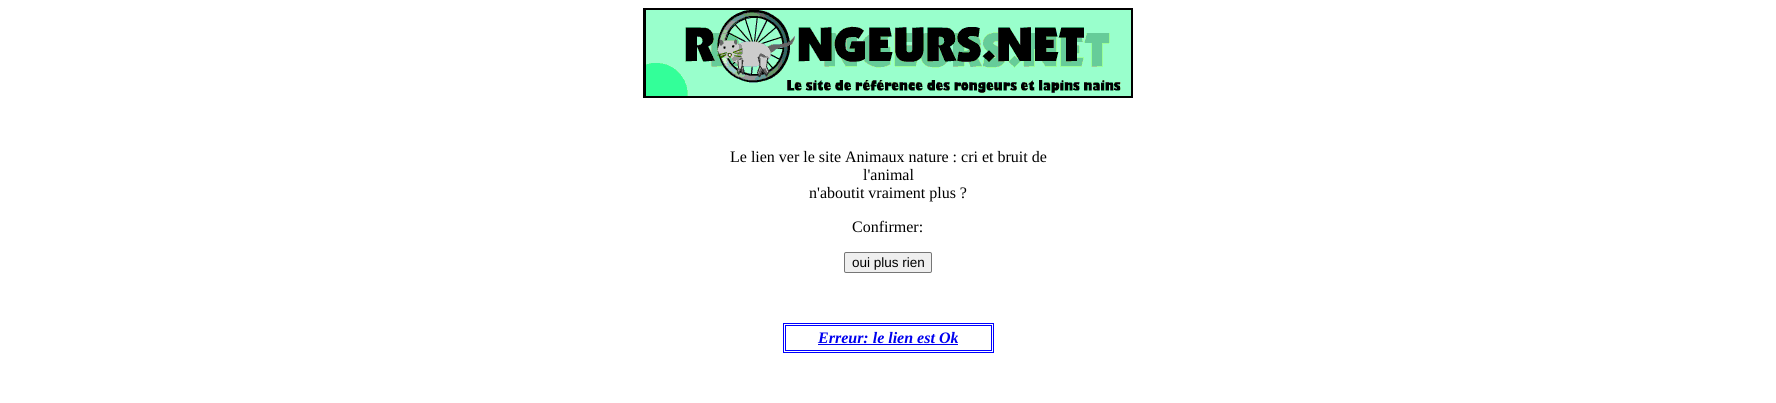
#include <cairo.h>
#include <math.h>
#include <stddef.h>

typedef struct { double x, y; const char *s; } line_t;

static void ink(cairo_t *ctx, unsigned color) {
    cairo_set_source_rgb(ctx, (color >> 16) / 255.0, (color >> 8 & 255) / 255.0, (color & 255) / 255.0);
}

static void round_path(cairo_t *ctx, double x, double y, double w, double h, double r) {
    cairo_new_sub_path(ctx);
    cairo_arc(ctx, x + w - r, y + h - r, r, 0, M_PI / 2);
    cairo_arc(ctx, x + r, y + h - r, r, M_PI / 2, M_PI);
    cairo_arc(ctx, x + r, y + r, r, M_PI, 1.5 * M_PI);
    cairo_arc(ctx, x + w - r, y + r, r, 1.5 * M_PI, 2 * M_PI);
    cairo_close_path(ctx);
}

static void paste(cairo_t *ctx, const char *path, double x, double y, double w, double h) {
    cairo_surface_t *image = cairo_image_surface_create_from_png(path);
    cairo_save(ctx);
    cairo_set_source_surface(ctx, image, x, y);
    cairo_rectangle(ctx, x, y, w, h);
    cairo_fill(ctx);
    cairo_restore(ctx);
    cairo_surface_destroy(image);
}

int main(void) {
    cairo_surface_t *surface = cairo_image_surface_create(CAIRO_FORMAT_RGB24, 1776, 403);
    cairo_t *ctx = cairo_create(surface);
    cairo_font_options_t *options = cairo_font_options_create();
    cairo_font_options_set_hint_metrics(options, CAIRO_HINT_METRICS_OFF);
    cairo_font_options_set_hint_style(options, CAIRO_HINT_STYLE_NONE);
    cairo_set_font_options(ctx, options);
    cairo_set_miter_limit(ctx, 4);
    ink(ctx, 0xFFFFFF);
    cairo_paint(ctx);
    paste(ctx, "media/1.png", 643, 8, 490, 90);
    cairo_select_font_face(ctx, "Liberation Serif", CAIRO_FONT_SLANT_NORMAL, CAIRO_FONT_WEIGHT_NORMAL);
    cairo_set_font_size(ctx, 16);
    ink(ctx, 0x000000);
    {
        static const line_t items[] = {
            {730, 162, "Le lien ver le site Animaux nature : cri et bruit de"},
            {863, 180, "l'animal"},
            {809, 198, "n'aboutit vraiment plus ?"},
            {852, 232, "Confirmer:"},
        };
        for (size_t i = 0; i < sizeof items / sizeof *items; i++) {
            cairo_move_to(ctx, items[i].x, items[i].y);
            cairo_show_text(ctx, items[i].s);
        }
    }
    ink(ctx, 0xEFEFEF);
    round_path(ctx, 844.5, 252.5, 87, 20, 1.5);
    cairo_fill_preserve(ctx);
    ink(ctx, 0x767676);
    cairo_set_line_width(ctx, 1);
    cairo_stroke(ctx);
    cairo_select_font_face(ctx, "Liberation Sans", CAIRO_FONT_SLANT_NORMAL, CAIRO_FONT_WEIGHT_NORMAL);
    cairo_set_font_size(ctx, 13.5);
    ink(ctx, 0x000000);
    cairo_move_to(ctx, 852, 267);
    cairo_show_text(ctx, "oui plus rien");
    cairo_rectangle(ctx, 783.5, 323.5, 210, 29);
    ink(ctx, 0x0000FF);
    cairo_stroke(ctx);
    cairo_rectangle(ctx, 785.5, 325.5, 206, 25);
    cairo_stroke(ctx);
    cairo_select_font_face(ctx, "Liberation Serif", CAIRO_FONT_SLANT_ITALIC, CAIRO_FONT_WEIGHT_BOLD);
    cairo_set_font_size(ctx, 16);
    ink(ctx, 0x0000EE);
    cairo_move_to(ctx, 818, 343);
    cairo_show_text(ctx, "Erreur: le lien est Ok");
    cairo_rectangle(ctx, 818, 344, 140, 1);
    cairo_fill(ctx);
    cairo_surface_write_to_png(surface, "image.png");
    cairo_font_options_destroy(options);
    cairo_destroy(ctx);
    cairo_surface_destroy(surface);
    return 0;
}
